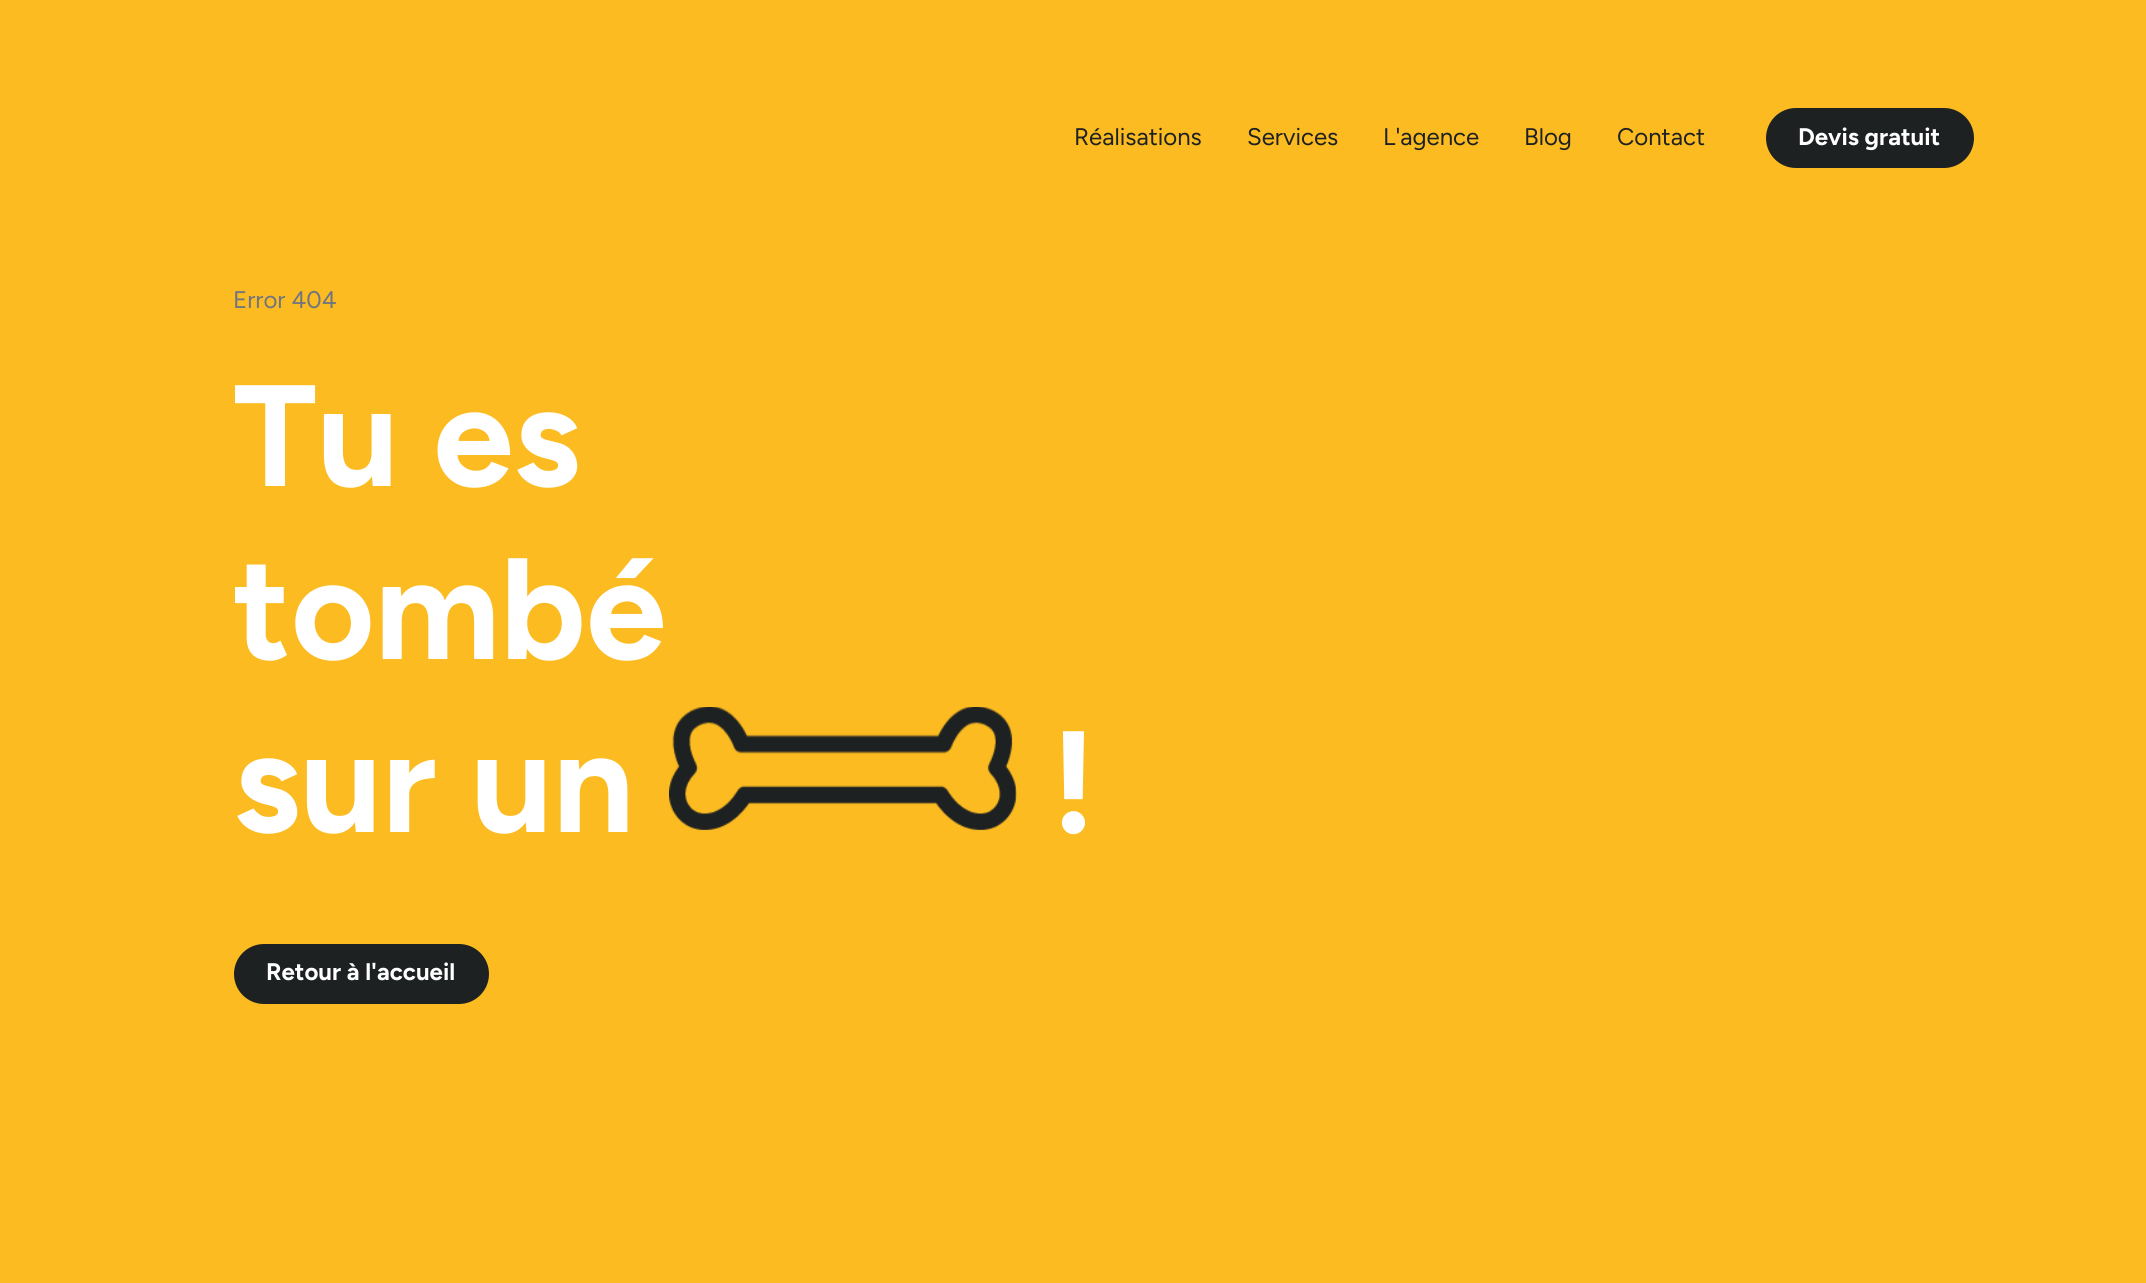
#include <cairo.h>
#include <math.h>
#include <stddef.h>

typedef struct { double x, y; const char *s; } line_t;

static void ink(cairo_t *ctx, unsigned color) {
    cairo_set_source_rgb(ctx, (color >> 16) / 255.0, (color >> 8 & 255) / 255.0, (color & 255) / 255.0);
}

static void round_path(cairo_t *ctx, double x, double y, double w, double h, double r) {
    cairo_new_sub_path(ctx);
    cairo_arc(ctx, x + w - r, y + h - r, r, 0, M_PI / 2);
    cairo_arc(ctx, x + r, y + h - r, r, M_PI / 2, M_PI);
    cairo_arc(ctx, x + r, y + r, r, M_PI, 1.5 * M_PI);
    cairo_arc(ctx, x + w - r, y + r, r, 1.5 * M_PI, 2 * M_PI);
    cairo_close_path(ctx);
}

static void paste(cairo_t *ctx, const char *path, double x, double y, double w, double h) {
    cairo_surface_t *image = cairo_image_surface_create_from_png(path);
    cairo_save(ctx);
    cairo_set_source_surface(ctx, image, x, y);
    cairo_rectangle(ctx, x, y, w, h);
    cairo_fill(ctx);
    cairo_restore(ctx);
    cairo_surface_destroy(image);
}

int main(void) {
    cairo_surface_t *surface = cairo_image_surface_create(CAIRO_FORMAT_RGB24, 2146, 1283);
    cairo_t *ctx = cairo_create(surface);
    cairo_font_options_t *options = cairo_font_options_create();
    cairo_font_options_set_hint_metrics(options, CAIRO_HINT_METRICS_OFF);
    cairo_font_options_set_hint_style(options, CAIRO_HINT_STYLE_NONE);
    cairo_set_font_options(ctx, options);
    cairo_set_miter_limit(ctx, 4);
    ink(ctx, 0xFBBB21);
    cairo_paint(ctx);
    cairo_select_font_face(ctx, "Figtree", CAIRO_FONT_SLANT_NORMAL, CAIRO_FONT_WEIGHT_NORMAL);
    cairo_set_font_size(ctx, 24);
    ink(ctx, 0x1E2122);
    {
        static const line_t items[] = {
            {1074, 145, "Réalisations"},
            {1247, 145, "Services"},
            {1383, 145, "L'agence"},
            {1524, 145, "Blog"},
            {1617, 145, "Contact"},
        };
        for (size_t i = 0; i < sizeof items / sizeof *items; i++) {
            cairo_move_to(ctx, items[i].x, items[i].y);
            cairo_show_text(ctx, items[i].s);
        }
    }
    round_path(ctx, 1767.5, 109.5, 205, 57, 28.5);
    cairo_fill_preserve(ctx);
    cairo_set_line_width(ctx, 3);
    cairo_stroke(ctx);
    cairo_select_font_face(ctx, "Figtree", CAIRO_FONT_SLANT_NORMAL, CAIRO_FONT_WEIGHT_BOLD);
    ink(ctx, 0xFFFFFF);
    cairo_move_to(ctx, 1798, 145);
    cairo_show_text(ctx, "Devis gratuit");
    cairo_select_font_face(ctx, "Figtree", CAIRO_FONT_SLANT_NORMAL, CAIRO_FONT_WEIGHT_NORMAL);
    ink(ctx, 0x6E7481);
    cairo_move_to(ctx, 233, 308);
    cairo_show_text(ctx, "Error 404");
    cairo_select_font_face(ctx, "Figtree", CAIRO_FONT_SLANT_NORMAL, CAIRO_FONT_WEIGHT_BOLD);
    cairo_set_font_size(ctx, 144);
    ink(ctx, 0xFFFFFF);
    {
        static const line_t items[] = {
            {233, 486, "Tu es"},
            {233, 659, "tombé"},
            {233, 832, "sur un"},
        };
        for (size_t i = 0; i < sizeof items / sizeof *items; i++) {
            cairo_move_to(ctx, items[i].x, items[i].y);
            cairo_show_text(ctx, items[i].s);
        }
    }
    paste(ctx, "media/1.png", 669, 707, 348, 124);
    cairo_move_to(ctx, 1051, 832);
    cairo_show_text(ctx, "!");
    ink(ctx, 0x1E2122);
    round_path(ctx, 235.5, 945.5, 252, 57, 28.5);
    cairo_fill_preserve(ctx);
    cairo_stroke(ctx);
    cairo_set_font_size(ctx, 24);
    ink(ctx, 0xFFFFFF);
    cairo_move_to(ctx, 266, 980);
    cairo_show_text(ctx, "Retour à l'accueil");
    cairo_surface_write_to_png(surface, "image.png");
    cairo_font_options_destroy(options);
    cairo_destroy(ctx);
    cairo_surface_destroy(surface);
    return 0;
}
